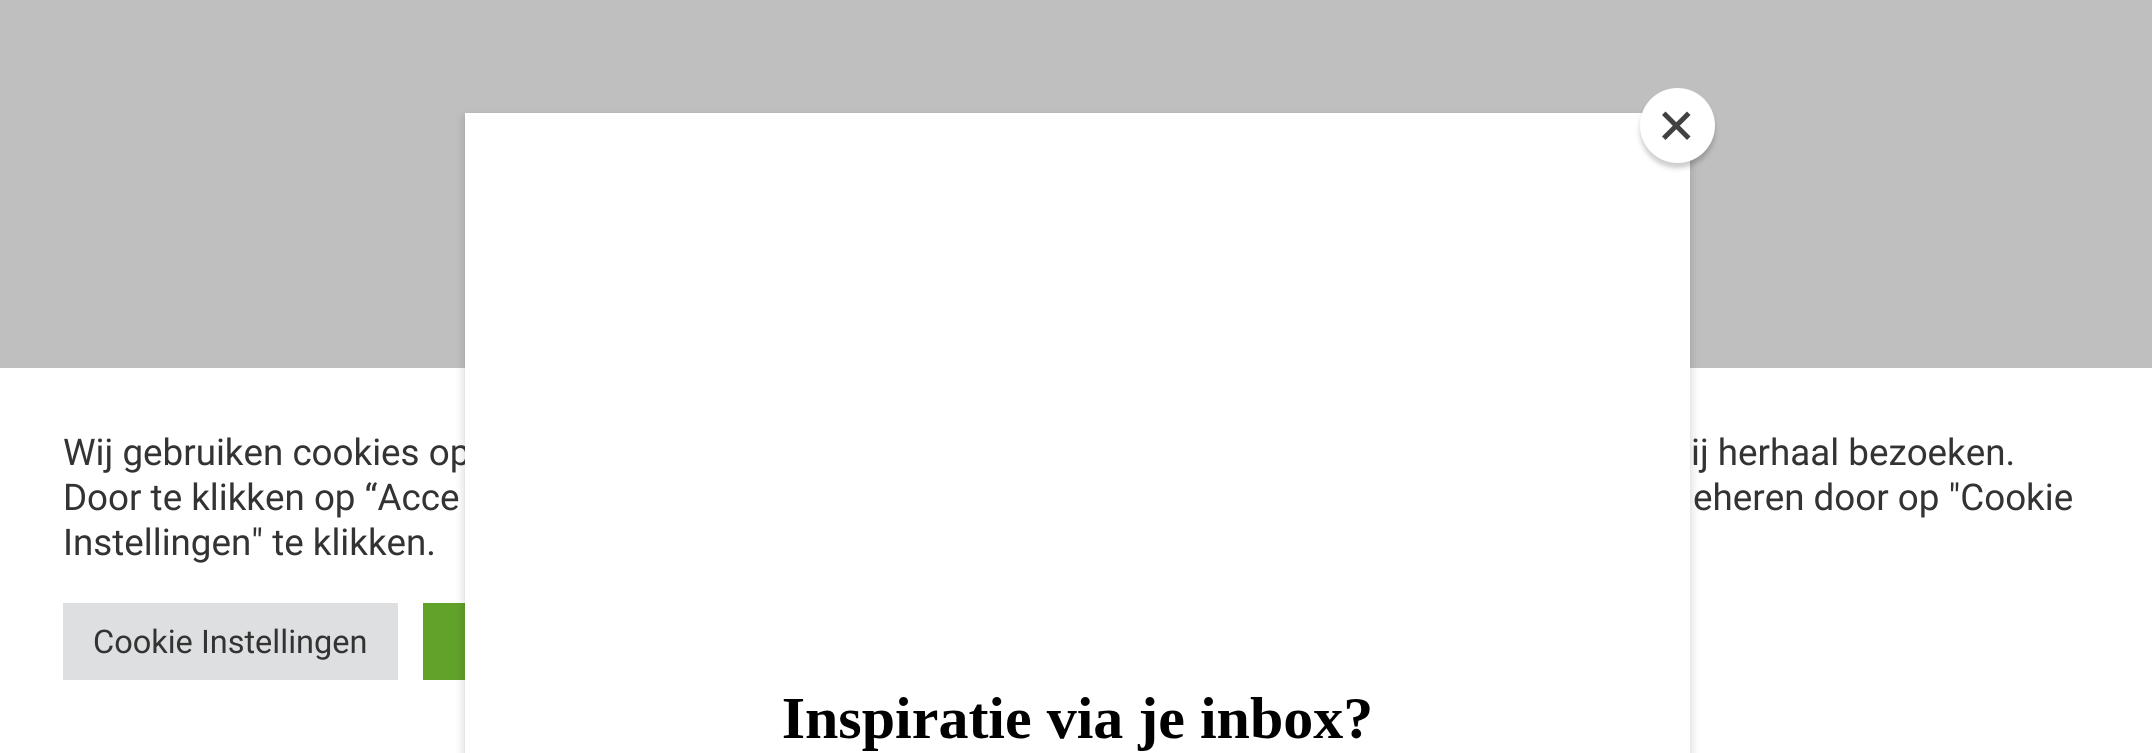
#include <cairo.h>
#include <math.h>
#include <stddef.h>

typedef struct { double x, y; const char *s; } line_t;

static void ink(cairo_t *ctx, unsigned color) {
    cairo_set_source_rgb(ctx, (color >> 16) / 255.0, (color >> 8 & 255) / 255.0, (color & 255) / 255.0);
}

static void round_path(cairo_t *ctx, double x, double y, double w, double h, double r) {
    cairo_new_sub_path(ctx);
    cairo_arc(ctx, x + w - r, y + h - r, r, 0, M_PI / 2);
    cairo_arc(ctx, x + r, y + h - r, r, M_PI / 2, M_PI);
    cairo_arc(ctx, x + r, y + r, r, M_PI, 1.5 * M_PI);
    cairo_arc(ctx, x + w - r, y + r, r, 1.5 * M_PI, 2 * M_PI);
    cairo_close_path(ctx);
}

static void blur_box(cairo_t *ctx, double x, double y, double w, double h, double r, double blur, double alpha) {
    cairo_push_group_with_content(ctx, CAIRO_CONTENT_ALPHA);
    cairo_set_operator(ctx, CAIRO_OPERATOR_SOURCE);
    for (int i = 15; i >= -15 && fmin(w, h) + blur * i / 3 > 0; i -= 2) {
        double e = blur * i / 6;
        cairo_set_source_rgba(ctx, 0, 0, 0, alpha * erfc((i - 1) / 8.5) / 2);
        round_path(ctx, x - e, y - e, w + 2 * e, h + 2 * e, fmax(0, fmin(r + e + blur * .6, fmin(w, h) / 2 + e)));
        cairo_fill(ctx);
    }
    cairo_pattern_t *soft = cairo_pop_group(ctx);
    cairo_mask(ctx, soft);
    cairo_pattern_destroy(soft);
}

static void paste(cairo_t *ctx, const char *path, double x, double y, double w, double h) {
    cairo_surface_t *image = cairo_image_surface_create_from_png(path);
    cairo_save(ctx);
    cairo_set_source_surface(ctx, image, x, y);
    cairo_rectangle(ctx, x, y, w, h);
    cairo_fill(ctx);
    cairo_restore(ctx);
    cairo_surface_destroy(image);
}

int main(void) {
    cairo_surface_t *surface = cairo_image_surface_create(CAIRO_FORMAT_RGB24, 2152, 753);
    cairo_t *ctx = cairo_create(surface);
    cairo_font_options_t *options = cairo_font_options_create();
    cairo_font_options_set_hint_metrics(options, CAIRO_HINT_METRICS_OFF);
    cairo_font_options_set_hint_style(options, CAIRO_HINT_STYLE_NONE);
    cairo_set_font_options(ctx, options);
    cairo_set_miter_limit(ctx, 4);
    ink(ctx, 0xBFBFBF);
    cairo_paint(ctx);
    ink(ctx, 0xFFFFFF);
    cairo_rectangle(ctx, 0, 368, 2152, 385);
    cairo_fill(ctx);
    ink(ctx, 0x61A229);
    cairo_rectangle(ctx, 423, 603, 42, 77);
    cairo_fill(ctx);
    cairo_save(ctx);
    cairo_set_fill_rule(ctx, CAIRO_FILL_RULE_EVEN_ODD);
    cairo_new_path(ctx);
    cairo_move_to(ctx, 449, 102);
    cairo_line_to(ctx, 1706, 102);
    cairo_line_to(ctx, 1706, 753);
    cairo_line_to(ctx, 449, 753);
    cairo_close_path(ctx);
    cairo_move_to(ctx, 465, 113);
    cairo_line_to(ctx, 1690, 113);
    cairo_line_to(ctx, 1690, 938);
    cairo_line_to(ctx, 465, 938);
    cairo_close_path(ctx);
    cairo_clip(ctx);
    ink(ctx, 0x000000);
    blur_box(ctx, 465, 118, 1225, 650, 0, 5, 0.2);
    cairo_restore(ctx);
    cairo_select_font_face(ctx, "Roboto", CAIRO_FONT_SLANT_NORMAL, CAIRO_FONT_WEIGHT_NORMAL);
    cairo_set_font_size(ctx, 36.75);
    ink(ctx, 0x333333);
    cairo_move_to(ctx, 63, 465);
    cairo_show_text(ctx, "Wij gebruiken cookies op");
    paste(ctx, "media/1.png", 465, 113, 1225, 638);
    ink(ctx, 0x000000);
    blur_box(ctx, 1640, 93, 75, 75, 37.5, 2.5, 0.2);
    ink(ctx, 0xFFFFFF);
    cairo_arc(ctx, 1677.5, 125.5, 37.5, 0, 2 * M_PI);
    cairo_fill(ctx);
    ink(ctx, 0x414141);
    cairo_new_path(ctx);
    cairo_move_to(ctx, 1687, 111.5);
    cairo_line_to(ctx, 1690.5, 115);
    cairo_line_to(ctx, 1665.5, 140);
    cairo_line_to(ctx, 1662, 136.5);
    cairo_close_path(ctx);
    cairo_fill(ctx);
    cairo_new_path(ctx);
    cairo_move_to(ctx, 1662, 115);
    cairo_line_to(ctx, 1665.5, 111.5);
    cairo_line_to(ctx, 1690.5, 136.5);
    cairo_line_to(ctx, 1687, 140);
    cairo_close_path(ctx);
    cairo_fill(ctx);
    ink(ctx, 0x333333);
    {
        static const line_t items[] = {
            {1691, 465, "ij herhaal bezoeken."},
            {63, 510, "Door te klikken op “Acce"},
            {1693, 510, "eheren door op \"Cookie"},
            {63, 555, "Instellingen\" te klikken."},
        };
        for (size_t i = 0; i < sizeof items / sizeof *items; i++) {
            cairo_move_to(ctx, items[i].x, items[i].y);
            cairo_show_text(ctx, items[i].s);
        }
    }
    ink(ctx, 0xDEDFE0);
    cairo_rectangle(ctx, 63, 603, 335, 77);
    cairo_fill(ctx);
    cairo_set_font_size(ctx, 32.5);
    ink(ctx, 0x333333);
    cairo_move_to(ctx, 93, 653);
    cairo_show_text(ctx, "Cookie Instellingen");
    cairo_surface_write_to_png(surface, "image.png");
    cairo_font_options_destroy(options);
    cairo_destroy(ctx);
    cairo_surface_destroy(surface);
    return 0;
}
